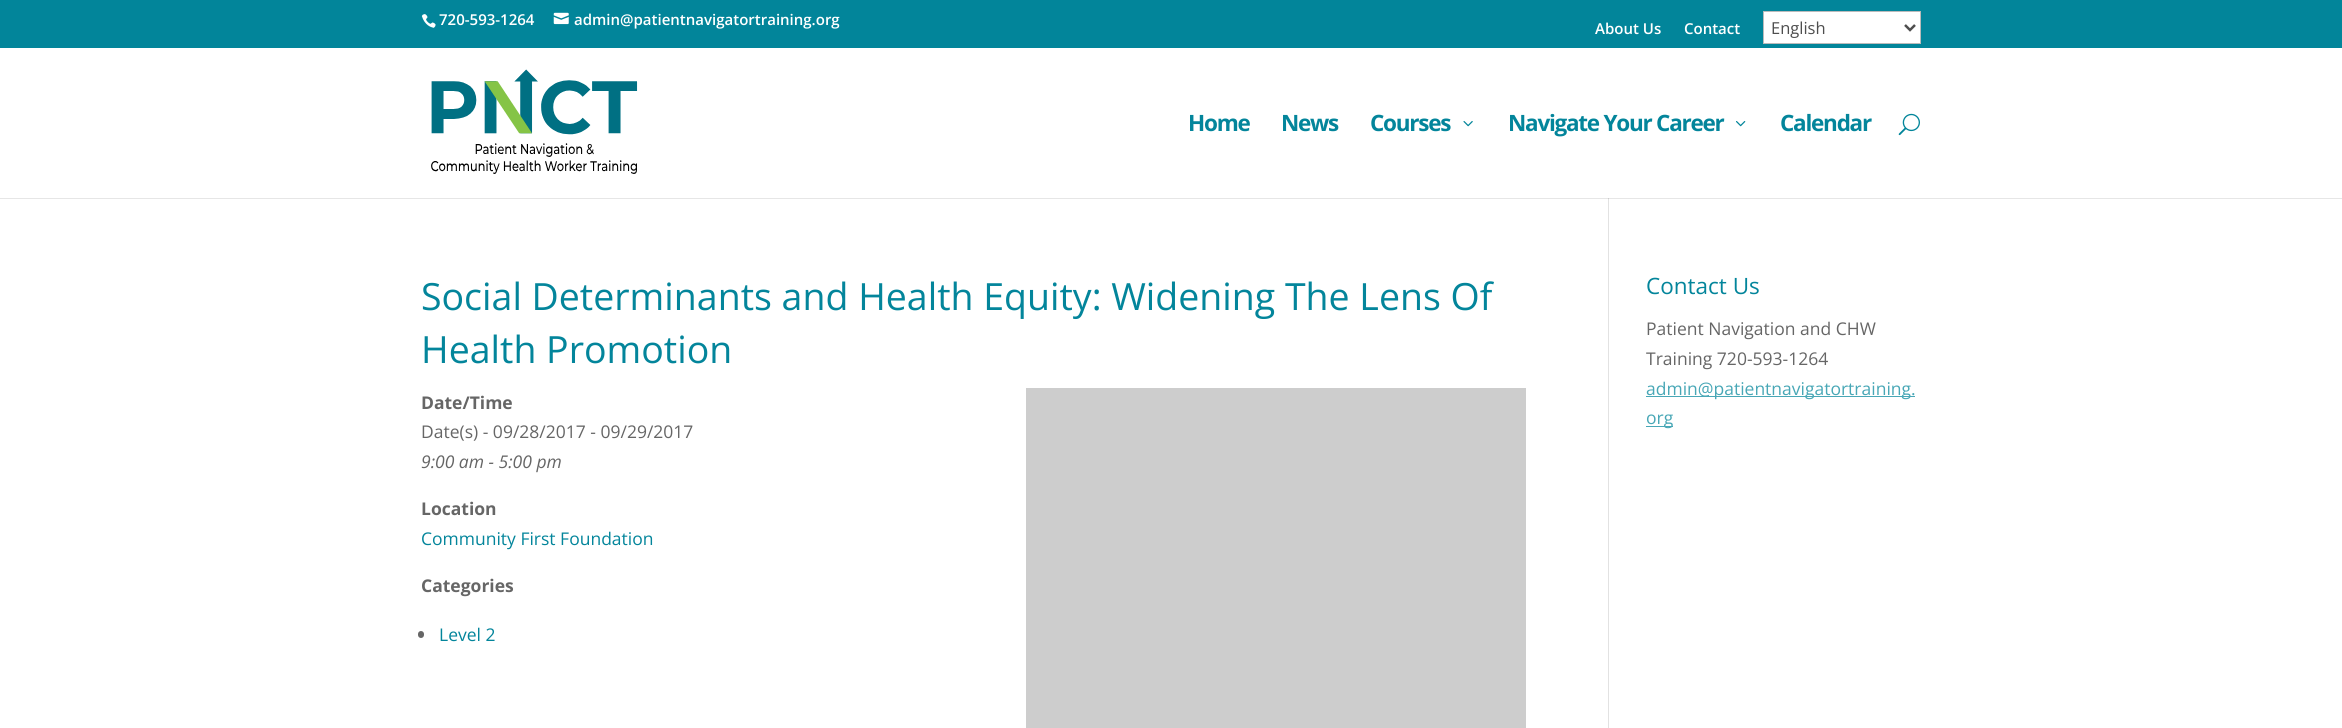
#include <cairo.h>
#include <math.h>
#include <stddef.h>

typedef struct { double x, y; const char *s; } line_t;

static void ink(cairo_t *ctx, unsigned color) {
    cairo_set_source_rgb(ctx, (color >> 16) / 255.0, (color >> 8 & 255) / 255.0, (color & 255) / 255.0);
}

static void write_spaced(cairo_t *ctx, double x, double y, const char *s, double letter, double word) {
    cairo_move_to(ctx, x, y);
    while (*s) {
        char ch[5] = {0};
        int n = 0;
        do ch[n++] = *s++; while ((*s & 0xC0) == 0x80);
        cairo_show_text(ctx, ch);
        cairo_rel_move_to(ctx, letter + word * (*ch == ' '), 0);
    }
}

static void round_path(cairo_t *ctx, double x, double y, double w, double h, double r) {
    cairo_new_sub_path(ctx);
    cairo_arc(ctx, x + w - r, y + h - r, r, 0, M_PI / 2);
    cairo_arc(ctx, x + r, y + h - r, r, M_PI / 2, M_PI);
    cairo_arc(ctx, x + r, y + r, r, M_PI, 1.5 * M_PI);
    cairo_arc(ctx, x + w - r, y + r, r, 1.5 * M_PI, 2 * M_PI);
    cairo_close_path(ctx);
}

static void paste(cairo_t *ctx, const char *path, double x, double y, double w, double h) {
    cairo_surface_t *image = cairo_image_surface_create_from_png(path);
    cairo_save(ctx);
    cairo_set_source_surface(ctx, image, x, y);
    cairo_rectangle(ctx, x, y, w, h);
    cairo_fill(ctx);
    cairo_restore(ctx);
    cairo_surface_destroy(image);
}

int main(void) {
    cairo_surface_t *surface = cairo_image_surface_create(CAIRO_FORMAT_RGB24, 2342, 728);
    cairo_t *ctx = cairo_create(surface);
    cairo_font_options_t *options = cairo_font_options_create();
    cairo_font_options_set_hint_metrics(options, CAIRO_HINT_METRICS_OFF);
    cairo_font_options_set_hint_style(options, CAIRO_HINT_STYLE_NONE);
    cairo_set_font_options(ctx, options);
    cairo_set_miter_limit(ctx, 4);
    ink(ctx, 0xFFFFFF);
    cairo_paint(ctx);
    ink(ctx, 0x02859A);
    cairo_rectangle(ctx, 0, 0, 2342, 48);
    cairo_fill(ctx);
    paste(ctx, "media/1.png", 421, 14, 15, 14);
    cairo_select_font_face(ctx, "Open Sans SemiBold", CAIRO_FONT_SLANT_NORMAL, CAIRO_FONT_WEIGHT_NORMAL);
    cairo_set_font_size(ctx, 15);
    ink(ctx, 0xFFFFFF);
    cairo_move_to(ctx, 439, 25);
    cairo_show_text(ctx, "720-593-1264");
    paste(ctx, "media/2.png", 553, 12, 16, 13);
    {
        static const line_t items[] = {
            {574, 25, "admin@patientnavigatortraining.org"},
            {1595, 34, "About Us"},
            {1684, 34, "Contact"},
        };
        for (size_t i = 0; i < sizeof items / sizeof *items; i++) {
            cairo_move_to(ctx, items[i].x, items[i].y);
            cairo_show_text(ctx, items[i].s);
        }
    }
    cairo_rectangle(ctx, 1763.5, 11.5, 157, 32);
    cairo_fill_preserve(ctx);
    ink(ctx, 0xBBBBBB);
    cairo_set_line_width(ctx, 1);
    cairo_stroke(ctx);
    cairo_new_path(ctx);
    cairo_move_to(ctx, 1905, 25);
    cairo_line_to(ctx, 1910, 30);
    cairo_line_to(ctx, 1915, 25);
    ink(ctx, 0x4E4E4E);
    cairo_set_line_width(ctx, 2.5);
    cairo_stroke(ctx);
    cairo_select_font_face(ctx, "Open Sans", CAIRO_FONT_SLANT_NORMAL, CAIRO_FONT_WEIGHT_NORMAL);
    cairo_set_font_size(ctx, 16.5);
    cairo_move_to(ctx, 1771, 34);
    cairo_show_text(ctx, "English");
    ink(ctx, 0xE2E2E2);
    cairo_rectangle(ctx, 1608, 198, 1, 530);
    cairo_fill(ctx);
    cairo_set_source_rgba(ctx, 0, 0, 0, 0.1);
    cairo_new_path(ctx);
    cairo_move_to(ctx, 0, 198);
    cairo_line_to(ctx, 0, 199);
    cairo_line_to(ctx, 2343, 199);
    cairo_line_to(ctx, 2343, 49);
    cairo_line_to(ctx, 2342, 49);
    cairo_line_to(ctx, 2342, 198);
    cairo_close_path(ctx);
    cairo_fill(ctx);
    paste(ctx, "media/3.png", 431, 69, 207, 105);
    cairo_select_font_face(ctx, "Open Sans", CAIRO_FONT_SLANT_NORMAL, CAIRO_FONT_WEIGHT_BOLD);
    cairo_set_font_size(ctx, 22.5);
    ink(ctx, 0x03859B);
    {
        static const line_t items[] = {
            {1188, 131, "Home"},
            {1281, 131, "News"},
            {1370, 131, "Courses"},
        };
        for (size_t i = 0; i < sizeof items / sizeof *items; i++) {
            write_spaced(ctx, items[i].x, items[i].y, items[i].s, -1.25, 0);
        }
    }
    paste(ctx, "media/4.png", 1463, 121, 10, 6);
    write_spaced(ctx, 1508, 131, "Navigate Your Career", -1.25, 0);
    paste(ctx, "media/5.png", 1736, 121, 10, 6);
    write_spaced(ctx, 1780, 131, "Calendar", -1.25, 0);
    paste(ctx, "media/6.png", 1898, 113, 22, 23);
    cairo_select_font_face(ctx, "Open Sans", CAIRO_FONT_SLANT_NORMAL, CAIRO_FONT_WEIGHT_NORMAL);
    cairo_set_font_size(ctx, 37.5);
    cairo_move_to(ctx, 421, 310);
    cairo_show_text(ctx, "Social Determinants and Health Equity: Widening The Lens Of");
    cairo_move_to(ctx, 421, 363);
    cairo_show_text(ctx, "Health Promotion");
    cairo_select_font_face(ctx, "Open Sans", CAIRO_FONT_SLANT_NORMAL, CAIRO_FONT_WEIGHT_BOLD);
    cairo_set_font_size(ctx, 17.5);
    ink(ctx, 0x666666);
    cairo_move_to(ctx, 421, 409);
    cairo_show_text(ctx, "Date/Time");
    cairo_select_font_face(ctx, "Open Sans", CAIRO_FONT_SLANT_NORMAL, CAIRO_FONT_WEIGHT_NORMAL);
    cairo_move_to(ctx, 421, 438);
    cairo_show_text(ctx, "Date(s) - 09/28/2017 - 09/29/2017");
    cairo_select_font_face(ctx, "Open Sans", CAIRO_FONT_SLANT_ITALIC, CAIRO_FONT_WEIGHT_NORMAL);
    cairo_move_to(ctx, 421, 468);
    cairo_show_text(ctx, "9:00 am - 5:00 pm");
    ink(ctx, 0xCDCDCD);
    cairo_rectangle(ctx, 1026, 388, 500, 340);
    cairo_fill(ctx);
    cairo_select_font_face(ctx, "Open Sans", CAIRO_FONT_SLANT_NORMAL, CAIRO_FONT_WEIGHT_BOLD);
    ink(ctx, 0x666666);
    cairo_move_to(ctx, 421, 515);
    cairo_show_text(ctx, "Location");
    cairo_select_font_face(ctx, "Open Sans", CAIRO_FONT_SLANT_NORMAL, CAIRO_FONT_WEIGHT_NORMAL);
    ink(ctx, 0x03859B);
    cairo_move_to(ctx, 421, 545);
    cairo_show_text(ctx, "Community First Foundation");
    cairo_select_font_face(ctx, "Open Sans", CAIRO_FONT_SLANT_NORMAL, CAIRO_FONT_WEIGHT_BOLD);
    ink(ctx, 0x666666);
    cairo_move_to(ctx, 421, 592);
    cairo_show_text(ctx, "Categories");
    round_path(ctx, 418, 631, 6, 7, 3);
    cairo_fill(ctx);
    cairo_select_font_face(ctx, "Open Sans", CAIRO_FONT_SLANT_NORMAL, CAIRO_FONT_WEIGHT_NORMAL);
    ink(ctx, 0x03859B);
    cairo_move_to(ctx, 439, 641);
    cairo_show_text(ctx, "Level 2");
    cairo_set_font_size(ctx, 22.5);
    cairo_move_to(ctx, 1646, 294);
    cairo_show_text(ctx, "Contact Us");
    cairo_set_font_size(ctx, 17.5);
    ink(ctx, 0x666666);
    cairo_move_to(ctx, 1646, 335);
    cairo_show_text(ctx, "Patient Navigation and CHW");
    cairo_move_to(ctx, 1646, 365);
    cairo_show_text(ctx, "Training 720-593-1264");
    ink(ctx, 0x48A7B6);
    cairo_rectangle(ctx, 1646, 396, 269, 1);
    cairo_fill(ctx);
    cairo_move_to(ctx, 1646, 395);
    cairo_show_text(ctx, "admin@patientnavigatortraining.");
    cairo_rectangle(ctx, 1646, 426, 27, 1);
    cairo_fill(ctx);
    cairo_move_to(ctx, 1646, 424);
    cairo_show_text(ctx, "org");
    cairo_surface_write_to_png(surface, "image.png");
    cairo_font_options_destroy(options);
    cairo_destroy(ctx);
    cairo_surface_destroy(surface);
    return 0;
}
